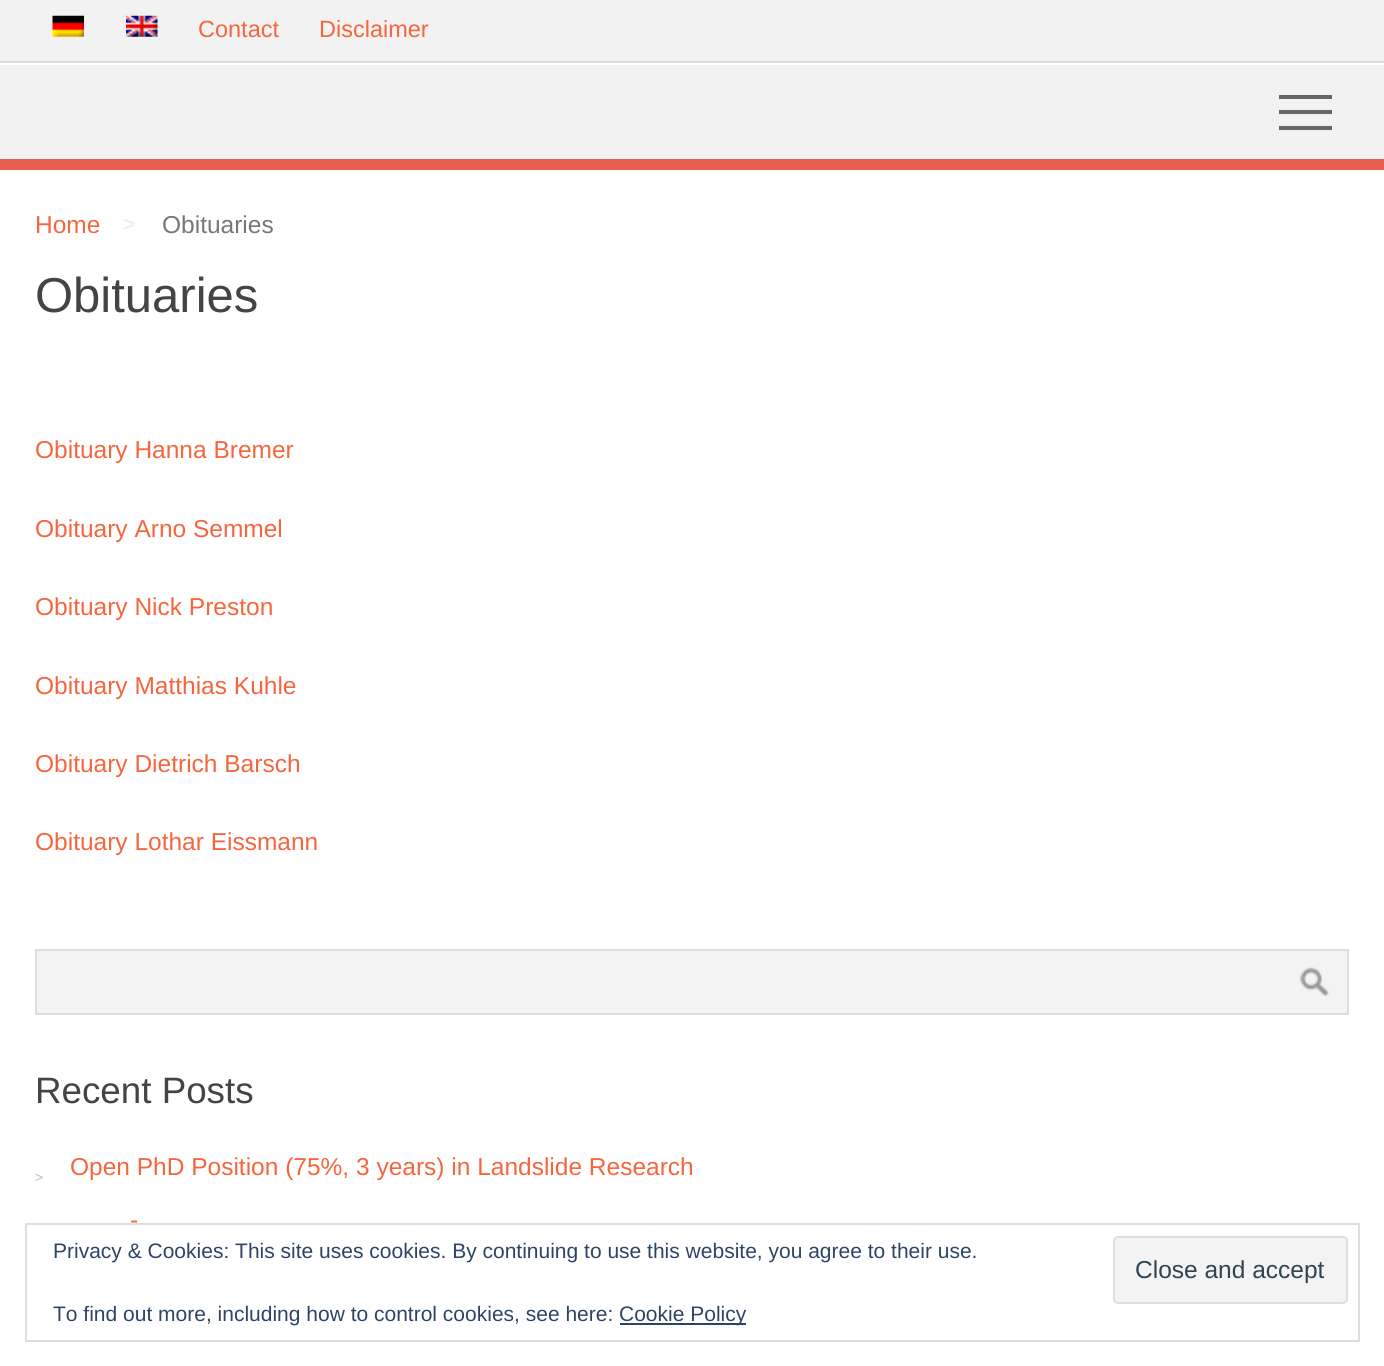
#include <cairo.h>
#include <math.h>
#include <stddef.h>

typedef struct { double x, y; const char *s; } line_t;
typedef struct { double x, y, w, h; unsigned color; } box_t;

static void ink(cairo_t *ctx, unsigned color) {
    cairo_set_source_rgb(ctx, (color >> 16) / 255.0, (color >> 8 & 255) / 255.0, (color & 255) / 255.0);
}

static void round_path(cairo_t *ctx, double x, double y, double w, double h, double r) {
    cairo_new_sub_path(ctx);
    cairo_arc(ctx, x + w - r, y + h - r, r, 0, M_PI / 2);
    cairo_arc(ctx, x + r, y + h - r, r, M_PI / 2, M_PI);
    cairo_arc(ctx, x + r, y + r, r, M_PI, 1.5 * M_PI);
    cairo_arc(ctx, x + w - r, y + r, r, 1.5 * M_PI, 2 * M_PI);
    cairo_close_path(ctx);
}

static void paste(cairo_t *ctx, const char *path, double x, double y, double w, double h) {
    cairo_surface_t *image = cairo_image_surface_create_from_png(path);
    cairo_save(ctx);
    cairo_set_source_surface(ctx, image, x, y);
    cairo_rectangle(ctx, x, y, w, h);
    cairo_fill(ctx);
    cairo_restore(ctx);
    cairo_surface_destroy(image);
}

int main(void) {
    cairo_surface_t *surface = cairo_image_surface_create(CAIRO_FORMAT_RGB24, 1384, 1366);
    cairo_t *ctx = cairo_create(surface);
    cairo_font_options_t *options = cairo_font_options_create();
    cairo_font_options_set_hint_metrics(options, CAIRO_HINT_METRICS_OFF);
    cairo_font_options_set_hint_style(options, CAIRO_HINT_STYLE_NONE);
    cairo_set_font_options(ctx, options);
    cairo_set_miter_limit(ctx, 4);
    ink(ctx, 0xFFFFFF);
    cairo_paint(ctx);
    ink(ctx, 0xF2F2F2);
    cairo_rectangle(ctx, 0, 0, 1384, 61);
    cairo_fill(ctx);
    ink(ctx, 0xDADADA);
    cairo_rectangle(ctx, 0, 61, 1384, 2);
    cairo_fill(ctx);
    paste(ctx, "media/1.png", 52, 15, 32, 22);
    paste(ctx, "media/2.png", 126, 15, 32, 22);
    cairo_select_font_face(ctx, "Liberation Sans", CAIRO_FONT_SLANT_NORMAL, CAIRO_FONT_WEIGHT_NORMAL);
    cairo_set_font_size(ctx, 23.5);
    ink(ctx, 0xF5663E);
    cairo_move_to(ctx, 198, 37);
    cairo_show_text(ctx, "Contact");
    cairo_move_to(ctx, 319, 37);
    cairo_show_text(ctx, "Disclaimer");
    {
        static const box_t items[] = {
            {0, 65, 1384, 94, 0xF2F2F2},
            {1279, 95, 53, 4, 0x666666},
            {1279, 126, 53, 4, 0x666666},
            {1279, 110, 53, 4, 0x666666},
            {0, 159, 1384, 11, 0xE85F52},
        };
        for (size_t i = 0; i < sizeof items / sizeof *items; i++) {
            ink(ctx, items[i].color);
            cairo_rectangle(ctx, items[i].x, items[i].y, items[i].w, items[i].h);
            cairo_fill(ctx);
        }
    }
    cairo_set_font_size(ctx, 24.5);
    ink(ctx, 0xF5663E);
    cairo_move_to(ctx, 35, 233);
    cairo_show_text(ctx, "Home");
    cairo_select_font_face(ctx, "Liberation Sans", CAIRO_FONT_SLANT_NORMAL, CAIRO_FONT_WEIGHT_BOLD);
    cairo_set_font_size(ctx, 21);
    ink(ctx, 0xEEEEEE);
    cairo_move_to(ctx, 123, 231);
    cairo_show_text(ctx, ">");
    cairo_select_font_face(ctx, "Liberation Sans", CAIRO_FONT_SLANT_NORMAL, CAIRO_FONT_WEIGHT_NORMAL);
    cairo_set_font_size(ctx, 24.5);
    ink(ctx, 0x777777);
    cairo_move_to(ctx, 162, 233);
    cairo_show_text(ctx, "Obituaries");
    cairo_set_font_size(ctx, 49);
    ink(ctx, 0x444444);
    cairo_move_to(ctx, 35, 312);
    cairo_show_text(ctx, "Obituaries");
    cairo_set_font_size(ctx, 24.5);
    ink(ctx, 0xF5663E);
    {
        static const line_t items[] = {
            {35, 458, "Obituary Hanna Bremer"},
            {35, 537, "Obituary Arno Semmel"},
            {35, 615, "Obituary Nick Preston"},
            {35, 694, "Obituary Matthias Kuhle"},
            {35, 772, "Obituary Dietrich Barsch"},
            {35, 850, "Obituary Lothar Eissmann"},
        };
        for (size_t i = 0; i < sizeof items / sizeof *items; i++) {
            cairo_move_to(ctx, items[i].x, items[i].y);
            cairo_show_text(ctx, items[i].s);
        }
    }
    ink(ctx, 0xF3F3F3);
    cairo_rectangle(ctx, 36, 950, 1312, 64);
    cairo_fill_preserve(ctx);
    ink(ctx, 0xDDDDDD);
    cairo_stroke(ctx);
    paste(ctx, "media/3.png", 1300, 967, 29, 29);
    cairo_set_font_size(ctx, 36.75);
    ink(ctx, 0x444444);
    cairo_move_to(ctx, 35, 1103);
    cairo_show_text(ctx, "Recent Posts");
    cairo_set_font_size(ctx, 14);
    ink(ctx, 0xBBBBBB);
    cairo_move_to(ctx, 35, 1182);
    cairo_show_text(ctx, ">");
    cairo_set_font_size(ctx, 24.5);
    ink(ctx, 0xF5663E);
    cairo_move_to(ctx, 70, 1175);
    cairo_show_text(ctx, "Open PhD Position (75%, 3 years) in Landslide Research");
    cairo_move_to(ctx, 130, 1228);
    cairo_show_text(ctx, "-");
    cairo_rectangle(ctx, 26, 1224, 1333, 117);
    ink(ctx, 0xDEDEDE);
    cairo_stroke(ctx);
    cairo_set_font_size(ctx, 21);
    ink(ctx, 0x2E4467);
    cairo_move_to(ctx, 53, 1258);
    cairo_show_text(ctx, "Privacy & Cookies: This site uses cookies. By continuing to use this website, you agree to their use.");
    ink(ctx, 0xF3F3F3);
    round_path(ctx, 1114, 1237, 233, 66, 4);
    cairo_fill_preserve(ctx);
    ink(ctx, 0xDEDEDE);
    cairo_stroke(ctx);
    cairo_set_font_size(ctx, 24.5);
    ink(ctx, 0x2E4453);
    cairo_move_to(ctx, 1135, 1278);
    cairo_show_text(ctx, "Close and accept");
    cairo_set_font_size(ctx, 21);
    ink(ctx, 0x2E4467);
    cairo_move_to(ctx, 53, 1321);
    cairo_show_text(ctx, "To find out more, including how to control cookies, see here:");
    cairo_rectangle(ctx, 620, 1323, 126, 2);
    cairo_fill(ctx);
    cairo_move_to(ctx, 619, 1321);
    cairo_show_text(ctx, "Cookie Policy");
    cairo_surface_write_to_png(surface, "image.png");
    cairo_font_options_destroy(options);
    cairo_destroy(ctx);
    cairo_surface_destroy(surface);
    return 0;
}
